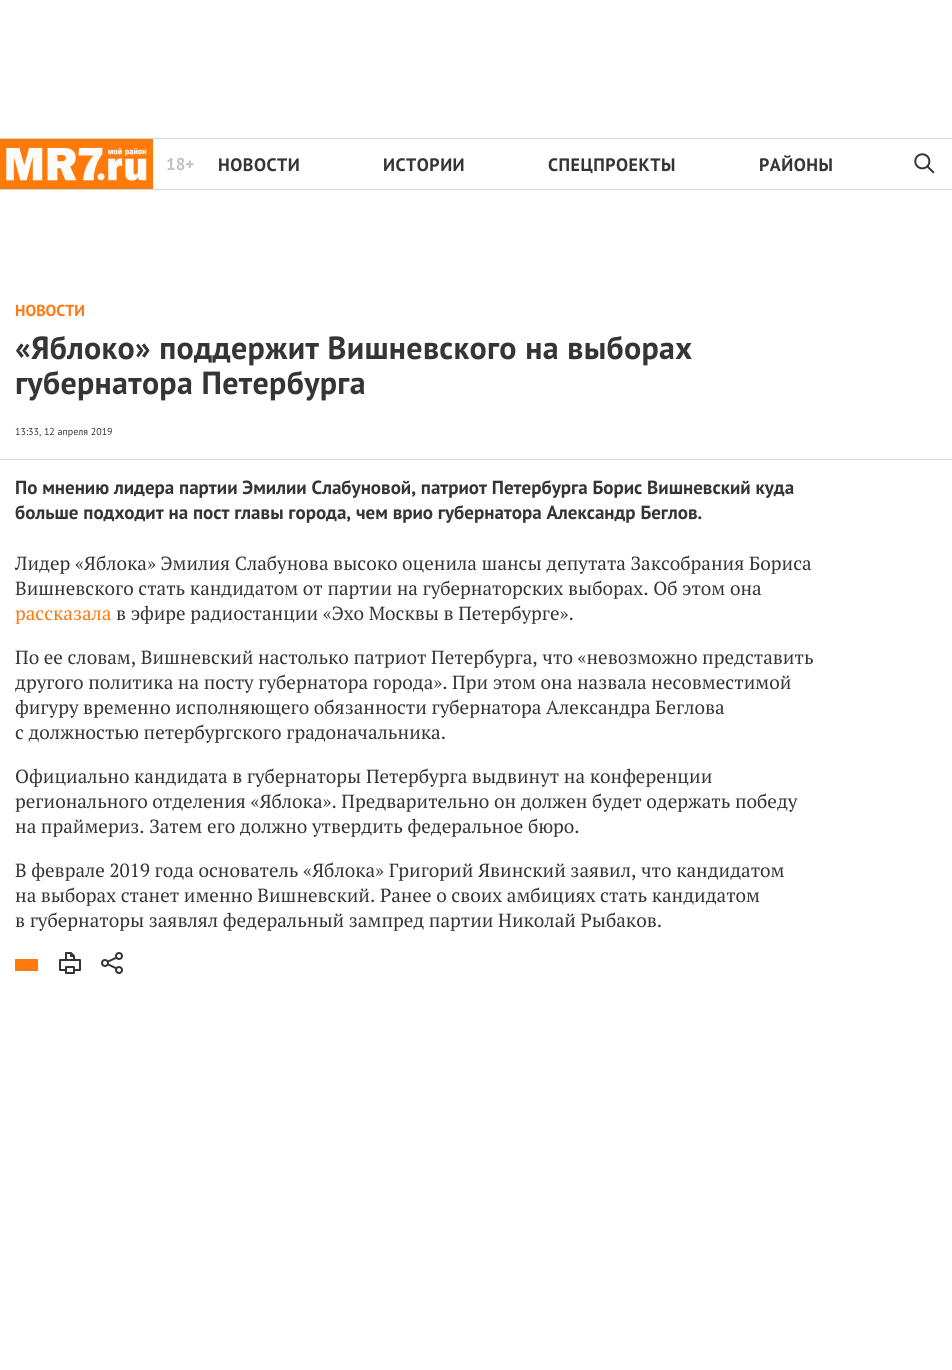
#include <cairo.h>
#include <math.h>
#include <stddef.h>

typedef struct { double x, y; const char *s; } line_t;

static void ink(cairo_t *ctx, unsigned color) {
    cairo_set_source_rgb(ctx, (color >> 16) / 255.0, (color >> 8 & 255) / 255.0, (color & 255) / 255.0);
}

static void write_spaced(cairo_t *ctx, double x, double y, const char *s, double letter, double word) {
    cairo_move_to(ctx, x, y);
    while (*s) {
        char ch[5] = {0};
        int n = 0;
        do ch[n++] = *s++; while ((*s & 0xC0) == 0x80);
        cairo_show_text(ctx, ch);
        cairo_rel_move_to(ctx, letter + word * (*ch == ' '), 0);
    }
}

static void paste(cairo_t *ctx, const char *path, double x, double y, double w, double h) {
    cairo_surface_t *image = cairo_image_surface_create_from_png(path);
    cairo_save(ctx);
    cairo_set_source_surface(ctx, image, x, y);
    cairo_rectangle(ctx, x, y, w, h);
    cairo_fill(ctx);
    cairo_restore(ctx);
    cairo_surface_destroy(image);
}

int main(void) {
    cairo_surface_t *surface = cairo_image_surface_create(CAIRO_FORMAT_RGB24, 952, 1370);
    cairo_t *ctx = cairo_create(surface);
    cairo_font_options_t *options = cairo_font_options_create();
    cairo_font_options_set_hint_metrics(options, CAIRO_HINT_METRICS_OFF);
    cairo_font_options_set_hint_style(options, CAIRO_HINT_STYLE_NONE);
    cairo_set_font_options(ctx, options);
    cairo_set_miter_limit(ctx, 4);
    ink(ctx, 0xFFFFFF);
    cairo_paint(ctx);
    ink(ctx, 0xD7D7D7);
    cairo_rectangle(ctx, 0, 138, 952, 1);
    cairo_fill(ctx);
    cairo_rectangle(ctx, 0, 189, 952, 1);
    cairo_fill(ctx);
    paste(ctx, "media/1.png", 0, 139, 153, 50);
    cairo_select_font_face(ctx, "PT Sans", CAIRO_FONT_SLANT_NORMAL, CAIRO_FONT_WEIGHT_BOLD);
    cairo_set_font_size(ctx, 17);
    ink(ctx, 0xC2C2C2);
    cairo_move_to(ctx, 166, 170);
    cairo_show_text(ctx, "18+");
    cairo_set_font_size(ctx, 18);
    ink(ctx, 0x353535);
    {
        static const line_t items[] = {
            {218, 171, "НОВОСТИ"},
            {383, 171, "ИСТОРИИ"},
            {548, 171, "СПЕЦПРОЕКТЫ"},
            {759, 171, "РАЙОНЫ"},
        };
        for (size_t i = 0; i < sizeof items / sizeof *items; i++) {
            write_spaced(ctx, items[i].x, items[i].y, items[i].s, 0.5, 0);
        }
    }
    paste(ctx, "media/2.png", 914, 153, 21, 21);
    ink(ctx, 0xD7D7D7);
    cairo_rectangle(ctx, 0, 459, 952, 1);
    cairo_fill(ctx);
    cairo_set_font_size(ctx, 16);
    ink(ctx, 0xFF7911);
    cairo_move_to(ctx, 15, 316);
    cairo_show_text(ctx, "НОВОСТИ");
    cairo_set_font_size(ctx, 32);
    ink(ctx, 0x353535);
    write_spaced(ctx, 15, 359, "«Яблоко» поддержит Вишневского на выборах", 0.3, 0);
    write_spaced(ctx, 15, 394, "губернатора Петербурга", 0.3, 0);
    cairo_select_font_face(ctx, "PT Sans", CAIRO_FONT_SLANT_NORMAL, CAIRO_FONT_WEIGHT_NORMAL);
    cairo_set_font_size(ctx, 10);
    cairo_move_to(ctx, 15, 435);
    cairo_show_text(ctx, "13:33, 12 апреля 2019");
    cairo_select_font_face(ctx, "PT Sans", CAIRO_FONT_SLANT_NORMAL, CAIRO_FONT_WEIGHT_BOLD);
    cairo_set_font_size(ctx, 19);
    cairo_move_to(ctx, 15, 494);
    cairo_show_text(ctx, "По мнению лидера партии Эмилии Слабуновой, патриот Петербурга Борис Вишневский куда");
    cairo_move_to(ctx, 15, 519);
    cairo_show_text(ctx, "больше подходит на пост главы города, чем врио губернатора Александр Беглов.");
    cairo_select_font_face(ctx, "PT Serif", CAIRO_FONT_SLANT_NORMAL, CAIRO_FONT_WEIGHT_NORMAL);
    cairo_move_to(ctx, 15, 570);
    cairo_show_text(ctx, "Лидер «Яблока» Эмилия Слабунова высоко оценила шансы депутата Заксобрания Бориса");
    cairo_move_to(ctx, 15, 595);
    cairo_show_text(ctx, "Вишневского стать кандидатом от партии на губернаторских выборах. Об этом она");
    ink(ctx, 0xFF7911);
    cairo_move_to(ctx, 15, 620);
    cairo_show_text(ctx, "рассказала");
    ink(ctx, 0x353535);
    {
        static const line_t items[] = {
            {116, 620, "в эфире радиостанции «Эхо Москвы в Петербурге»."},
            {15, 664, "По ее словам, Вишневский настолько патриот Петербурга, что «невозможно представить"},
            {15, 689, "другого политика на посту губернатора города». При этом она назвала несовместимой"},
            {15, 714, "фигуру временно исполняющего обязанности губернатора Александра Беглова"},
            {15, 739, "с должностью петербургского градоначальника."},
            {15, 783, "Официально кандидата в губернаторы Петербурга выдвинут на конференции"},
            {15, 808, "регионального отделения «Яблока». Предварительно он должен будет одержать победу"},
            {15, 833, "на праймериз. Затем его должно утвердить федеральное бюро."},
            {15, 877, "В феврале 2019 года основатель «Яблока» Григорий Явинский заявил, что кандидатом"},
            {15, 902, "на выборах станет именно Вишневский. Ранее о своих амбициях стать кандидатом"},
            {15, 927, "в губернаторы заявлял федеральный зампред партии Николай Рыбаков."},
        };
        for (size_t i = 0; i < sizeof items / sizeof *items; i++) {
            cairo_move_to(ctx, items[i].x, items[i].y);
            cairo_show_text(ctx, items[i].s);
        }
    }
    ink(ctx, 0xFF7911);
    cairo_rectangle(ctx, 15, 959, 23, 12);
    cairo_fill(ctx);
    paste(ctx, "media/3.png", 59, 952, 22, 22);
    paste(ctx, "media/4.png", 101, 952, 22, 22);
    cairo_surface_write_to_png(surface, "image.png");
    cairo_font_options_destroy(options);
    cairo_destroy(ctx);
    cairo_surface_destroy(surface);
    return 0;
}
